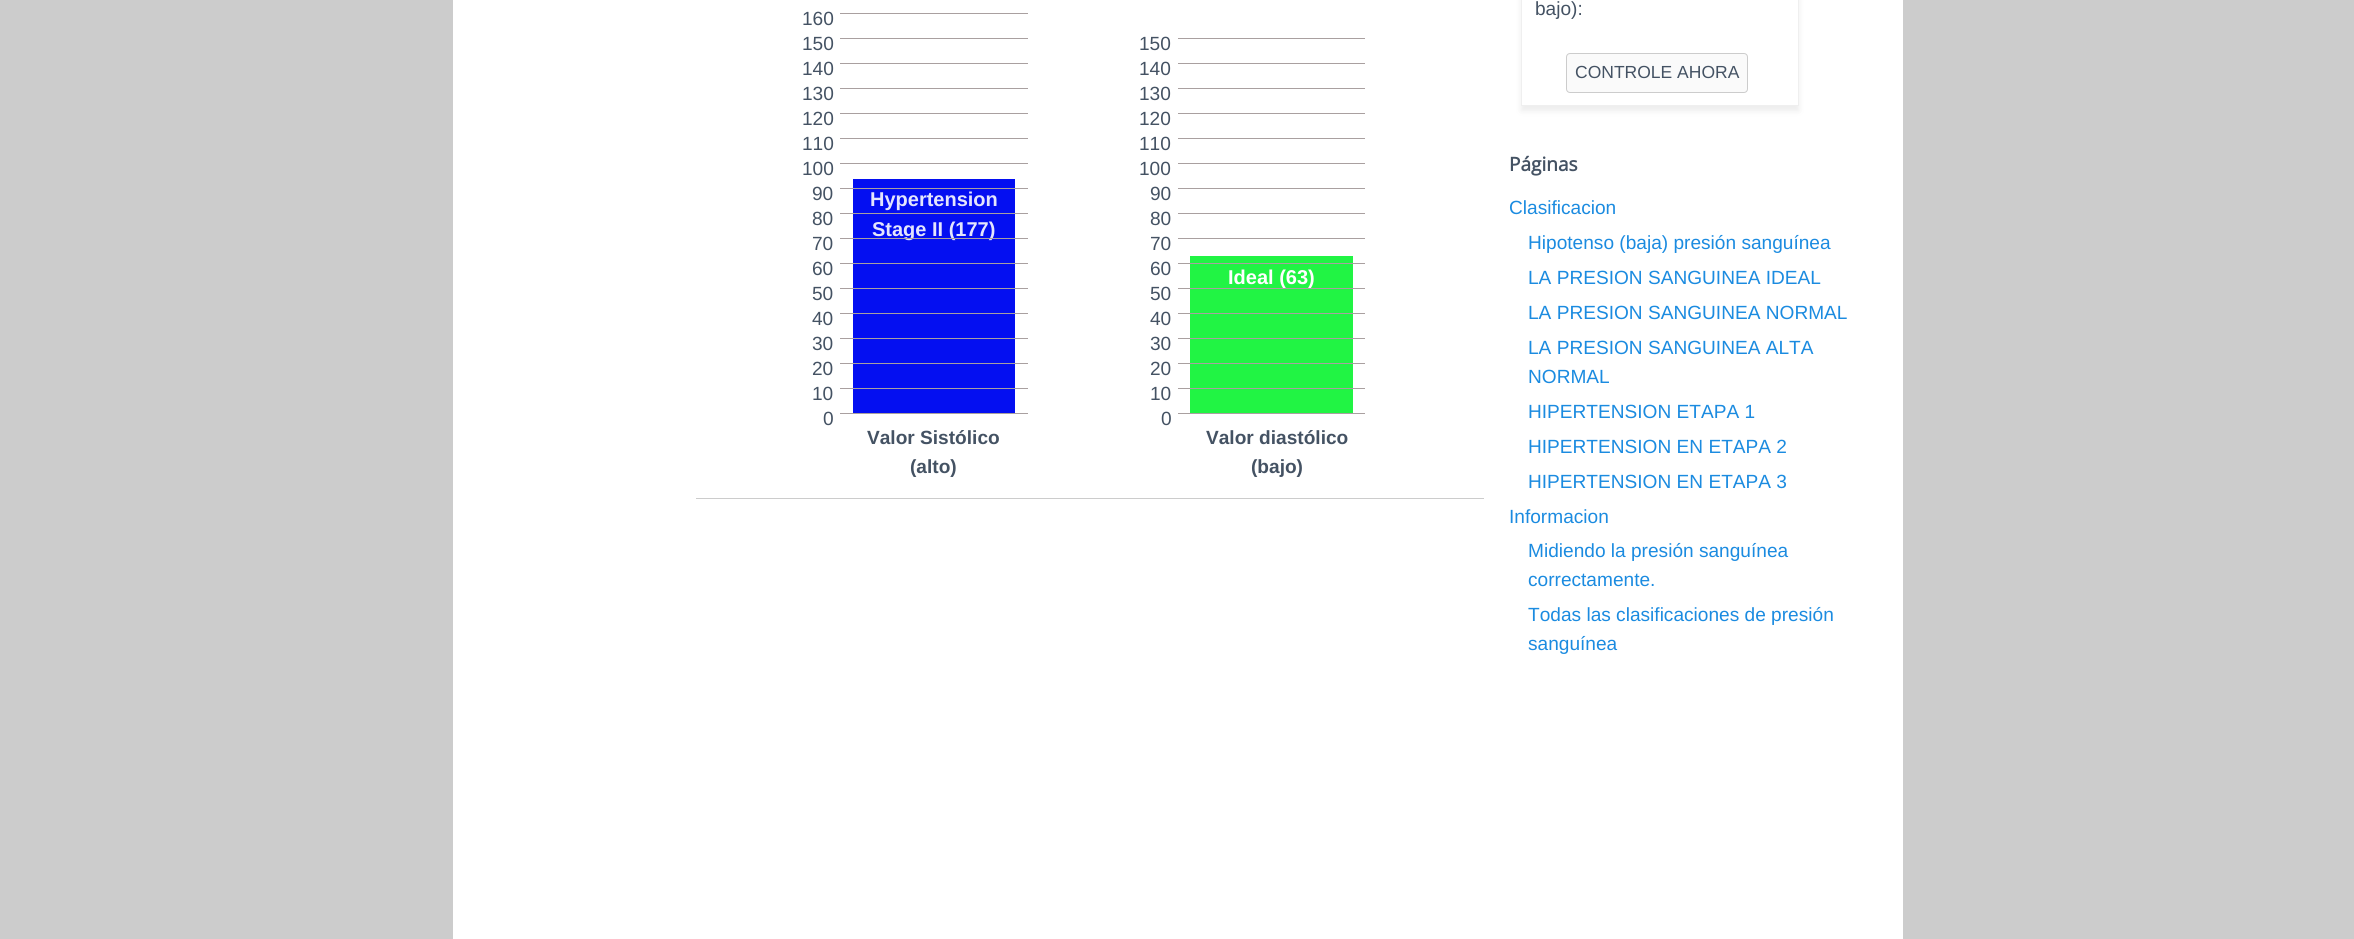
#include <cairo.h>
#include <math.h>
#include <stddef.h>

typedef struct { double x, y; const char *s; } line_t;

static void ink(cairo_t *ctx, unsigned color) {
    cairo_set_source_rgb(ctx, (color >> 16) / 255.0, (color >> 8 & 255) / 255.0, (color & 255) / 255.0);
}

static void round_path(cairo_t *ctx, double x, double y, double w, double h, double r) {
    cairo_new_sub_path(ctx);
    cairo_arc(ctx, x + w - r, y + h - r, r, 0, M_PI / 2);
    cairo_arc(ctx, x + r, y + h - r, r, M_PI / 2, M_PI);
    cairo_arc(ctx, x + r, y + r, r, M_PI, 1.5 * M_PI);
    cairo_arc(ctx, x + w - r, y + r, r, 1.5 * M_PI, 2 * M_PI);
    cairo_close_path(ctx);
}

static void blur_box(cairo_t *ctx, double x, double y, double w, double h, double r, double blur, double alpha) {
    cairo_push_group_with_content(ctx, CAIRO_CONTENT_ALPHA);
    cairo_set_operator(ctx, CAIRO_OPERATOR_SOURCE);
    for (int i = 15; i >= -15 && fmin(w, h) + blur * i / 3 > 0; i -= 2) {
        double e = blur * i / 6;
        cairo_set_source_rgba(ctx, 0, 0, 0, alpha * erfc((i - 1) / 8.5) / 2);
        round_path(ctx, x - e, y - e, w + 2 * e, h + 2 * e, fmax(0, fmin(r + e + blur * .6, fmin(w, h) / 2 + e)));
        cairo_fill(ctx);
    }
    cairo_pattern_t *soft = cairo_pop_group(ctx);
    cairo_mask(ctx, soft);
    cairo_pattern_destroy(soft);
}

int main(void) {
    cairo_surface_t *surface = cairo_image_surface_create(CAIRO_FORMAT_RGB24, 2354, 939);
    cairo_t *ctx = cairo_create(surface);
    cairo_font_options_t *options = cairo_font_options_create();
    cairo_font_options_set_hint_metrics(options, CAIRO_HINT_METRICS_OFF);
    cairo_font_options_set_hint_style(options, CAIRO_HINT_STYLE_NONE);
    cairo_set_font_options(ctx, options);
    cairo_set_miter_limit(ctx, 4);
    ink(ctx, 0xCCCCCC);
    cairo_paint(ctx);
    ink(ctx, 0xFFFFFF);
    cairo_rectangle(ctx, 453, 0, 1450, 939);
    cairo_fill(ctx);
    cairo_select_font_face(ctx, "Liberation Sans", CAIRO_FONT_SLANT_NORMAL, CAIRO_FONT_WEIGHT_NORMAL);
    cairo_set_font_size(ctx, 19.1);
    ink(ctx, 0x445263);
    cairo_move_to(ctx, 802, 25);
    cairo_show_text(ctx, "160");
    ink(ctx, 0xA9A0A0);
    cairo_rectangle(ctx, 840, 13, 188, 1);
    cairo_fill(ctx);
    ink(ctx, 0x445263);
    cairo_move_to(ctx, 802, 50);
    cairo_show_text(ctx, "150");
    ink(ctx, 0xA9A0A0);
    cairo_rectangle(ctx, 840, 38, 188, 1);
    cairo_fill(ctx);
    ink(ctx, 0x445263);
    cairo_move_to(ctx, 802, 75);
    cairo_show_text(ctx, "140");
    ink(ctx, 0xA9A0A0);
    cairo_rectangle(ctx, 840, 63, 188, 1);
    cairo_fill(ctx);
    ink(ctx, 0x445263);
    cairo_move_to(ctx, 802, 100);
    cairo_show_text(ctx, "130");
    ink(ctx, 0xA9A0A0);
    cairo_rectangle(ctx, 840, 88, 188, 1);
    cairo_fill(ctx);
    ink(ctx, 0x445263);
    cairo_move_to(ctx, 802, 125);
    cairo_show_text(ctx, "120");
    ink(ctx, 0xA9A0A0);
    cairo_rectangle(ctx, 840, 113, 188, 1);
    cairo_fill(ctx);
    ink(ctx, 0x445263);
    cairo_move_to(ctx, 802, 150);
    cairo_show_text(ctx, "110");
    ink(ctx, 0xA9A0A0);
    cairo_rectangle(ctx, 840, 138, 188, 1);
    cairo_fill(ctx);
    ink(ctx, 0x445263);
    cairo_move_to(ctx, 802, 175);
    cairo_show_text(ctx, "100");
    ink(ctx, 0xA9A0A0);
    cairo_rectangle(ctx, 840, 163, 188, 1);
    cairo_fill(ctx);
    ink(ctx, 0x445263);
    cairo_move_to(ctx, 812, 200);
    cairo_show_text(ctx, "90");
    ink(ctx, 0x040FF1);
    cairo_rectangle(ctx, 853, 179, 162, 234);
    cairo_fill(ctx);
    ink(ctx, 0xA9A0A0);
    cairo_rectangle(ctx, 840, 188, 188, 1);
    cairo_fill(ctx);
    ink(ctx, 0x445263);
    cairo_move_to(ctx, 812, 225);
    cairo_show_text(ctx, "80");
    ink(ctx, 0xA9A0A0);
    cairo_rectangle(ctx, 840, 213, 188, 1);
    cairo_fill(ctx);
    ink(ctx, 0x445263);
    cairo_move_to(ctx, 812, 250);
    cairo_show_text(ctx, "70");
    cairo_select_font_face(ctx, "Liberation Sans", CAIRO_FONT_SLANT_NORMAL, CAIRO_FONT_WEIGHT_BOLD);
    cairo_set_font_size(ctx, 20);
    ink(ctx, 0xE4E5FD);
    cairo_move_to(ctx, 872, 236);
    cairo_show_text(ctx, "Stage II (177)");
    ink(ctx, 0xA9A0A0);
    cairo_rectangle(ctx, 840, 238, 188, 1);
    cairo_fill(ctx);
    cairo_select_font_face(ctx, "Liberation Sans", CAIRO_FONT_SLANT_NORMAL, CAIRO_FONT_WEIGHT_NORMAL);
    cairo_set_font_size(ctx, 19.1);
    ink(ctx, 0x445263);
    cairo_move_to(ctx, 812, 275);
    cairo_show_text(ctx, "60");
    ink(ctx, 0xA9A0A0);
    cairo_rectangle(ctx, 840, 263, 188, 1);
    cairo_fill(ctx);
    ink(ctx, 0x445263);
    cairo_move_to(ctx, 812, 300);
    cairo_show_text(ctx, "50");
    ink(ctx, 0xA9A0A0);
    cairo_rectangle(ctx, 840, 288, 188, 1);
    cairo_fill(ctx);
    ink(ctx, 0x445263);
    cairo_move_to(ctx, 812, 325);
    cairo_show_text(ctx, "40");
    ink(ctx, 0xA9A0A0);
    cairo_rectangle(ctx, 840, 313, 188, 1);
    cairo_fill(ctx);
    ink(ctx, 0x445263);
    cairo_move_to(ctx, 812, 350);
    cairo_show_text(ctx, "30");
    ink(ctx, 0xA9A0A0);
    cairo_rectangle(ctx, 840, 338, 188, 1);
    cairo_fill(ctx);
    ink(ctx, 0x445263);
    cairo_move_to(ctx, 812, 375);
    cairo_show_text(ctx, "20");
    ink(ctx, 0xA9A0A0);
    cairo_rectangle(ctx, 840, 363, 188, 1);
    cairo_fill(ctx);
    ink(ctx, 0x445263);
    cairo_move_to(ctx, 812, 400);
    cairo_show_text(ctx, "10");
    ink(ctx, 0xA9A0A0);
    cairo_rectangle(ctx, 840, 388, 188, 1);
    cairo_fill(ctx);
    ink(ctx, 0x445263);
    cairo_move_to(ctx, 823, 425);
    cairo_show_text(ctx, "0");
    ink(ctx, 0xA9A0A0);
    cairo_rectangle(ctx, 840, 413, 188, 1);
    cairo_fill(ctx);
    cairo_select_font_face(ctx, "Liberation Sans", CAIRO_FONT_SLANT_NORMAL, CAIRO_FONT_WEIGHT_BOLD);
    cairo_set_font_size(ctx, 20);
    ink(ctx, 0xE4E5FD);
    cairo_move_to(ctx, 870, 206);
    cairo_show_text(ctx, "Hypertension");
    cairo_set_font_size(ctx, 19.1);
    ink(ctx, 0x445263);
    cairo_move_to(ctx, 867, 444);
    cairo_show_text(ctx, "Valor Sistólico");
    cairo_move_to(ctx, 910, 473);
    cairo_show_text(ctx, "(alto)");
    cairo_select_font_face(ctx, "Liberation Sans", CAIRO_FONT_SLANT_NORMAL, CAIRO_FONT_WEIGHT_NORMAL);
    cairo_move_to(ctx, 1139, 50);
    cairo_show_text(ctx, "150");
    ink(ctx, 0xA9A0A0);
    cairo_rectangle(ctx, 1178, 38, 187, 1);
    cairo_fill(ctx);
    ink(ctx, 0x445263);
    cairo_move_to(ctx, 1139, 75);
    cairo_show_text(ctx, "140");
    ink(ctx, 0xA9A0A0);
    cairo_rectangle(ctx, 1178, 63, 187, 1);
    cairo_fill(ctx);
    ink(ctx, 0x445263);
    cairo_move_to(ctx, 1139, 100);
    cairo_show_text(ctx, "130");
    ink(ctx, 0xA9A0A0);
    cairo_rectangle(ctx, 1178, 88, 187, 1);
    cairo_fill(ctx);
    ink(ctx, 0x445263);
    cairo_move_to(ctx, 1139, 125);
    cairo_show_text(ctx, "120");
    ink(ctx, 0xA9A0A0);
    cairo_rectangle(ctx, 1178, 113, 187, 1);
    cairo_fill(ctx);
    ink(ctx, 0x445263);
    cairo_move_to(ctx, 1139, 150);
    cairo_show_text(ctx, "110");
    ink(ctx, 0xA9A0A0);
    cairo_rectangle(ctx, 1178, 138, 187, 1);
    cairo_fill(ctx);
    ink(ctx, 0x445263);
    cairo_move_to(ctx, 1139, 175);
    cairo_show_text(ctx, "100");
    ink(ctx, 0xA9A0A0);
    cairo_rectangle(ctx, 1178, 163, 187, 1);
    cairo_fill(ctx);
    ink(ctx, 0x445263);
    cairo_move_to(ctx, 1150, 200);
    cairo_show_text(ctx, "90");
    ink(ctx, 0xA9A0A0);
    cairo_rectangle(ctx, 1178, 188, 187, 1);
    cairo_fill(ctx);
    ink(ctx, 0x445263);
    cairo_move_to(ctx, 1150, 225);
    cairo_show_text(ctx, "80");
    ink(ctx, 0xA9A0A0);
    cairo_rectangle(ctx, 1178, 213, 187, 1);
    cairo_fill(ctx);
    ink(ctx, 0x445263);
    cairo_move_to(ctx, 1150, 250);
    cairo_show_text(ctx, "70");
    ink(ctx, 0xA9A0A0);
    cairo_rectangle(ctx, 1178, 238, 187, 1);
    cairo_fill(ctx);
    ink(ctx, 0x445263);
    cairo_move_to(ctx, 1150, 275);
    cairo_show_text(ctx, "60");
    ink(ctx, 0x21F444);
    cairo_rectangle(ctx, 1190, 256, 163, 157);
    cairo_fill(ctx);
    ink(ctx, 0xA9A0A0);
    cairo_rectangle(ctx, 1178, 263, 187, 1);
    cairo_fill(ctx);
    ink(ctx, 0x445263);
    cairo_move_to(ctx, 1150, 300);
    cairo_show_text(ctx, "50");
    cairo_select_font_face(ctx, "Liberation Sans", CAIRO_FONT_SLANT_NORMAL, CAIRO_FONT_WEIGHT_BOLD);
    cairo_set_font_size(ctx, 20);
    ink(ctx, 0xFFFFFF);
    cairo_move_to(ctx, 1228, 284);
    cairo_show_text(ctx, "Ideal (63)");
    ink(ctx, 0xA9A0A0);
    cairo_rectangle(ctx, 1178, 288, 187, 1);
    cairo_fill(ctx);
    cairo_select_font_face(ctx, "Liberation Sans", CAIRO_FONT_SLANT_NORMAL, CAIRO_FONT_WEIGHT_NORMAL);
    cairo_set_font_size(ctx, 19.1);
    ink(ctx, 0x445263);
    cairo_move_to(ctx, 1150, 325);
    cairo_show_text(ctx, "40");
    ink(ctx, 0xA9A0A0);
    cairo_rectangle(ctx, 1178, 313, 187, 1);
    cairo_fill(ctx);
    ink(ctx, 0x445263);
    cairo_move_to(ctx, 1150, 350);
    cairo_show_text(ctx, "30");
    ink(ctx, 0xA9A0A0);
    cairo_rectangle(ctx, 1178, 338, 187, 1);
    cairo_fill(ctx);
    ink(ctx, 0x445263);
    cairo_move_to(ctx, 1150, 375);
    cairo_show_text(ctx, "20");
    ink(ctx, 0xA9A0A0);
    cairo_rectangle(ctx, 1178, 363, 187, 1);
    cairo_fill(ctx);
    ink(ctx, 0x445263);
    cairo_move_to(ctx, 1150, 400);
    cairo_show_text(ctx, "10");
    ink(ctx, 0xA9A0A0);
    cairo_rectangle(ctx, 1178, 388, 187, 1);
    cairo_fill(ctx);
    ink(ctx, 0x445263);
    cairo_move_to(ctx, 1161, 425);
    cairo_show_text(ctx, "0");
    ink(ctx, 0xA9A0A0);
    cairo_rectangle(ctx, 1178, 413, 187, 1);
    cairo_fill(ctx);
    cairo_select_font_face(ctx, "Liberation Sans", CAIRO_FONT_SLANT_NORMAL, CAIRO_FONT_WEIGHT_BOLD);
    ink(ctx, 0x445263);
    cairo_move_to(ctx, 1206, 444);
    cairo_show_text(ctx, "Valor diastólico");
    cairo_move_to(ctx, 1251, 473);
    cairo_show_text(ctx, "(bajo)");
    ink(ctx, 0xCCCCCC);
    cairo_rectangle(ctx, 696, 498, 788, 1);
    cairo_fill(ctx);
    cairo_save(ctx);
    cairo_set_fill_rule(ctx, CAIRO_FILL_RULE_EVEN_ODD);
    cairo_new_path(ctx);
    cairo_move_to(ctx, 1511, 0);
    cairo_line_to(ctx, 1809, 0);
    cairo_line_to(ctx, 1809, 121);
    cairo_line_to(ctx, 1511, 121);
    cairo_close_path(ctx);
    cairo_move_to(ctx, 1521, -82);
    cairo_line_to(ctx, 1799, -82);
    cairo_line_to(ctx, 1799, 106);
    cairo_line_to(ctx, 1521, 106);
    cairo_close_path(ctx);
    cairo_clip(ctx);
    ink(ctx, 0x404040);
    blur_box(ctx, 1521, -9, 278, 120, 0, 3, 0.1);
    cairo_restore(ctx);
    cairo_rectangle(ctx, 1521.5, -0.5, 277, 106);
    ink(ctx, 0xEFEFEF);
    cairo_set_line_width(ctx, 1);
    cairo_stroke(ctx);
    cairo_select_font_face(ctx, "Liberation Sans", CAIRO_FONT_SLANT_NORMAL, CAIRO_FONT_WEIGHT_NORMAL);
    ink(ctx, 0x445263);
    cairo_move_to(ctx, 1535, 15);
    cairo_show_text(ctx, "bajo):");
    ink(ctx, 0xFAFAFA);
    round_path(ctx, 1566.5, 53.5, 181, 39, 3.5);
    cairo_fill_preserve(ctx);
    ink(ctx, 0xCCCCCC);
    cairo_stroke(ctx);
    cairo_set_font_size(ctx, 17.5);
    ink(ctx, 0x445263);
    cairo_move_to(ctx, 1575, 78);
    cairo_show_text(ctx, "CONTROLE AHORA");
    cairo_select_font_face(ctx, "Open Sans", CAIRO_FONT_SLANT_NORMAL, CAIRO_FONT_WEIGHT_BOLD);
    cairo_set_font_size(ctx, 19.1);
    cairo_move_to(ctx, 1509, 171);
    cairo_show_text(ctx, "Páginas");
    cairo_select_font_face(ctx, "Liberation Sans", CAIRO_FONT_SLANT_NORMAL, CAIRO_FONT_WEIGHT_NORMAL);
    ink(ctx, 0x1B8BE0);
    {
        static const line_t items[] = {
            {1509, 214, "Clasificacion"},
            {1528, 249, "Hipotenso (baja) presión sanguínea"},
            {1528, 284, "LA PRESION SANGUINEA IDEAL"},
            {1528, 319, "LA PRESION SANGUINEA NORMAL"},
            {1528, 354, "LA PRESION SANGUINEA ALTA"},
            {1528, 383, "NORMAL"},
            {1528, 418, "HIPERTENSION ETAPA 1"},
            {1528, 453, "HIPERTENSION EN ETAPA 2"},
            {1528, 488, "HIPERTENSION EN ETAPA 3"},
            {1509, 523, "Informacion"},
            {1528, 557, "Midiendo la presión sanguínea"},
            {1528, 586, "correctamente."},
            {1528, 621, "Todas las clasificaciones de presión"},
            {1528, 650, "sanguínea"},
        };
        for (size_t i = 0; i < sizeof items / sizeof *items; i++) {
            cairo_move_to(ctx, items[i].x, items[i].y);
            cairo_show_text(ctx, items[i].s);
        }
    }
    cairo_surface_write_to_png(surface, "image.png");
    cairo_font_options_destroy(options);
    cairo_destroy(ctx);
    cairo_surface_destroy(surface);
    return 0;
}
